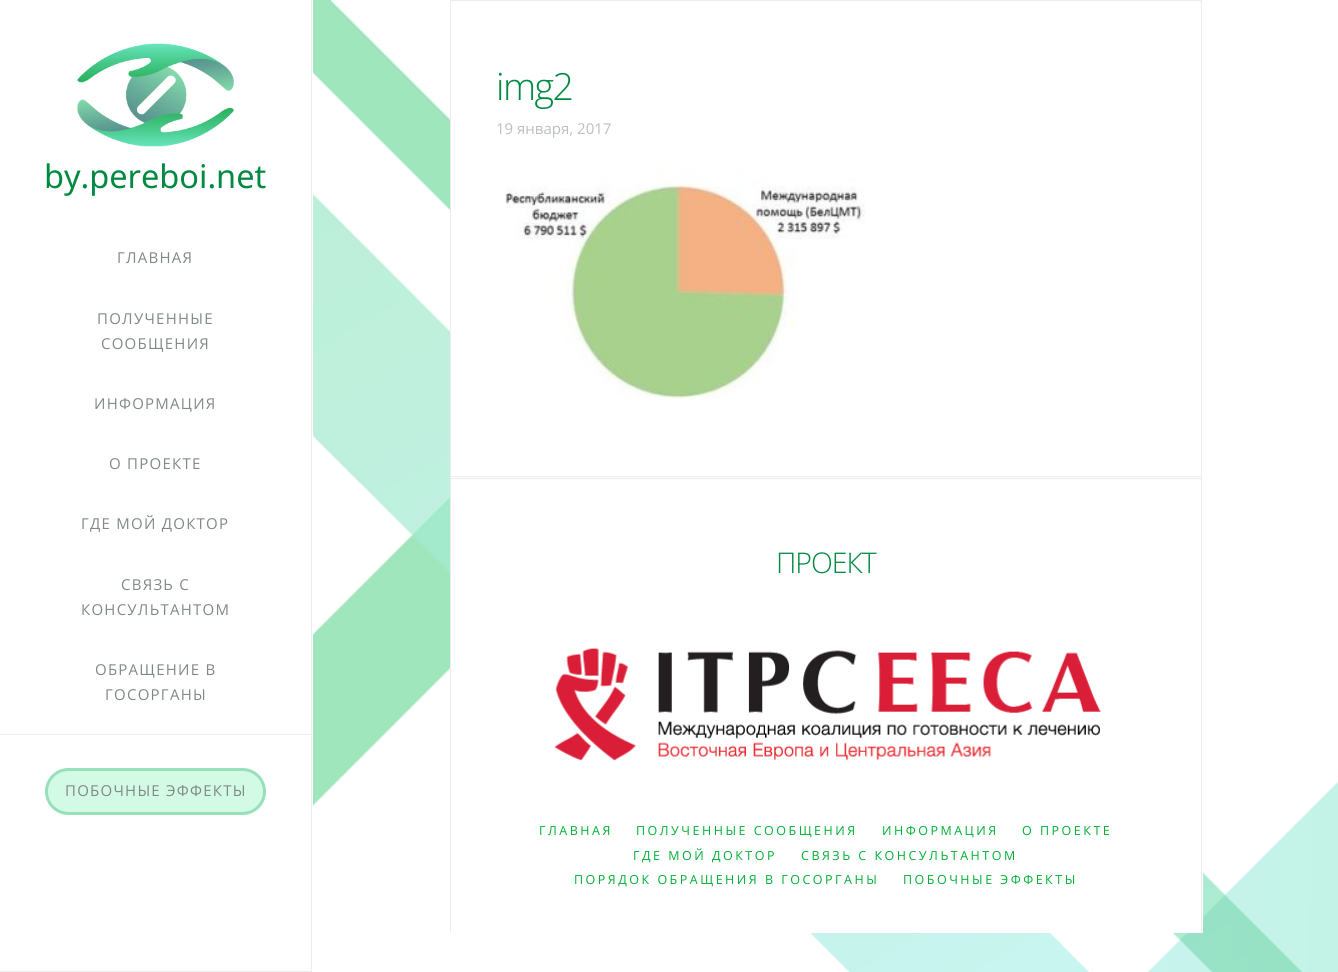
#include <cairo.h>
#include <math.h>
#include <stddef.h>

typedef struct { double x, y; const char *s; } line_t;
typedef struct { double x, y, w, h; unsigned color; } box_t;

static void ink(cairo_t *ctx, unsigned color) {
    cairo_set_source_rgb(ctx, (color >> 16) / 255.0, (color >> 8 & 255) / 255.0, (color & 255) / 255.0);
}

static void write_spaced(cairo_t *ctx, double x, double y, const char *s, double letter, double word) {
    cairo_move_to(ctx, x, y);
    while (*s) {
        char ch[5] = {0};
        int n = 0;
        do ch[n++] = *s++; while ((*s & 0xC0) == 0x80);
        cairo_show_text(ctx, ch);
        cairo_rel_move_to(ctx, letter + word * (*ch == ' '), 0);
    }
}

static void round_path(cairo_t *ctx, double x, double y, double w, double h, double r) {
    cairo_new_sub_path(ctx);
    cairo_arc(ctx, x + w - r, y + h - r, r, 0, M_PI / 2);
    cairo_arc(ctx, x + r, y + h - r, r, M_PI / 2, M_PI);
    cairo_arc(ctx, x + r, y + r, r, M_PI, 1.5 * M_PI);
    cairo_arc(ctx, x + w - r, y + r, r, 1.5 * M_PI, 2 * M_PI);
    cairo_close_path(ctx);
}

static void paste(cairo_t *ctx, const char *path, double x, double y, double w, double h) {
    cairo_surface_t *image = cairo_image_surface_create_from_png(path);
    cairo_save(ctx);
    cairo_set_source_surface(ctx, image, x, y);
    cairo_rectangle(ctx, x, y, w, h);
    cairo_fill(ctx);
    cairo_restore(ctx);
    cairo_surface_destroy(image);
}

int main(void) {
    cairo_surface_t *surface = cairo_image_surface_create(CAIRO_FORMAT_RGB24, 1338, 972);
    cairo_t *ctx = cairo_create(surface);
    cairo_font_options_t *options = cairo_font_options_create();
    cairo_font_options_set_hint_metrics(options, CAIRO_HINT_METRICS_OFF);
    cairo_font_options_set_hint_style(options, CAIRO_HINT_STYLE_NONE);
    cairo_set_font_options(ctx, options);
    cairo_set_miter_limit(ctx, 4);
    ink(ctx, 0xFFFFFF);
    cairo_paint(ctx);
    paste(ctx, "media/1.png", 313, 0, 1025, 972);
    {
        static const box_t items[] = {
            {451, 0, 752, 933, 0xFFFFFF},
            {1201, 0, 1, 933, 0xECECEC},
            {450, 0, 1, 933, 0xECECEC},
            {451, 0, 750, 1, 0xECECEC},
            {451, 476, 750, 1, 0xECECEC},
        };
        for (size_t i = 0; i < sizeof items / sizeof *items; i++) {
            ink(ctx, items[i].color);
            cairo_rectangle(ctx, items[i].x, items[i].y, items[i].w, items[i].h);
            cairo_fill(ctx);
        }
    }
    cairo_select_font_face(ctx, "Open Sans Light", CAIRO_FONT_SLANT_NORMAL, CAIRO_FONT_WEIGHT_NORMAL);
    cairo_set_font_size(ctx, 37.5);
    ink(ctx, 0x008940);
    write_spaced(ctx, 496, 100, "img2", -1.5, 0);
    cairo_select_font_face(ctx, "Open Sans", CAIRO_FONT_SLANT_NORMAL, CAIRO_FONT_WEIGHT_NORMAL);
    cairo_set_font_size(ctx, 15);
    ink(ctx, 0xBBC0BD);
    cairo_move_to(ctx, 496, 134);
    cairo_show_text(ctx, "19 января, 2017");
    paste(ctx, "media/2.png", 505, 169, 360, 231);
    ink(ctx, 0xECECEC);
    cairo_new_path(ctx);
    cairo_move_to(ctx, 312, 0);
    cairo_line_to(ctx, 312, 972);
    cairo_line_to(ctx, 311, 971);
    cairo_line_to(ctx, 311, 0);
    cairo_close_path(ctx);
    cairo_fill(ctx);
    cairo_set_source_rgba(ctx, 0, 0, 0, 0.07);
    cairo_new_path(ctx);
    cairo_move_to(ctx, 312, 972);
    cairo_line_to(ctx, 0, 972);
    cairo_line_to(ctx, 0, 971);
    cairo_line_to(ctx, 311, 971);
    cairo_close_path(ctx);
    cairo_fill(ctx);
    paste(ctx, "media/3.png", 77, 43, 157, 104);
    cairo_select_font_face(ctx, "Noto Sans", CAIRO_FONT_SLANT_NORMAL, CAIRO_FONT_WEIGHT_NORMAL);
    cairo_set_font_size(ctx, 32.5);
    ink(ctx, 0x008940);
    cairo_move_to(ctx, 44, 188);
    cairo_show_text(ctx, "by.pereboi.net");
    cairo_select_font_face(ctx, "Open Sans", CAIRO_FONT_SLANT_NORMAL, CAIRO_FONT_WEIGHT_NORMAL);
    cairo_set_font_size(ctx, 15);
    ink(ctx, 0x808984);
    {
        static const line_t items[] = {
            {117, 263, "ГЛАВНАЯ"},
            {97, 324, "ПОЛУЧЕННЫЕ"},
            {101, 349, "СООБЩЕНИЯ"},
            {94, 409, "ИНФОРМАЦИЯ"},
            {109, 469, "О ПРОЕКТЕ"},
            {81, 529, "ГДЕ МОЙ ДОКТОР"},
            {121, 590, "СВЯЗЬ С"},
            {81, 615, "КОНСУЛЬТАНТОМ"},
            {95, 675, "ОБРАЩЕНИЕ В"},
            {105, 700, "ГОСОРГАНЫ"},
        };
        for (size_t i = 0; i < sizeof items / sizeof *items; i++) {
            write_spaced(ctx, items[i].x, items[i].y, items[i].s, 1.25, 0);
        }
    }
    ink(ctx, 0xECECEC);
    cairo_rectangle(ctx, 0, 734, 311, 1);
    cairo_fill(ctx);
    ink(ctx, 0xD2FAE5);
    round_path(ctx, 46.5, 769.5, 218, 44, 22);
    cairo_fill_preserve(ctx);
    ink(ctx, 0x98E0BA);
    cairo_set_line_width(ctx, 3);
    cairo_stroke(ctx);
    ink(ctx, 0x808984);
    write_spaced(ctx, 65, 796, "ПОБОЧНЫЕ ЭФФЕКТЫ", 1.25, 0);
    ink(ctx, 0xECECEC);
    cairo_rectangle(ctx, 451, 478, 750, 1);
    cairo_fill(ctx);
    cairo_select_font_face(ctx, "Open Sans Light", CAIRO_FONT_SLANT_NORMAL, CAIRO_FONT_WEIGHT_NORMAL);
    cairo_set_font_size(ctx, 28.5);
    ink(ctx, 0x008940);
    write_spaced(ctx, 776, 573, "ПРОЕКТ", -1, 0);
    paste(ctx, "media/4.png", 554, 648, 547, 113);
    cairo_select_font_face(ctx, "Open Sans", CAIRO_FONT_SLANT_NORMAL, CAIRO_FONT_WEIGHT_NORMAL);
    cairo_set_font_size(ctx, 12.5);
    ink(ctx, 0x00AF34);
    {
        static const line_t items[] = {
            {539, 835, "ГЛАВНАЯ"},
            {636, 835, "ПОЛУЧЕННЫЕ СООБЩЕНИЯ"},
            {882, 835, "ИНФОРМАЦИЯ"},
            {1022, 835, "О ПРОЕКТЕ"},
            {633, 860, "ГДЕ МОЙ ДОКТОР"},
            {801, 860, "СВЯЗЬ С КОНСУЛЬТАНТОМ"},
            {574, 884, "ПОРЯДОК ОБРАЩЕНИЯ В ГОСОРГАНЫ"},
            {903, 884, "ПОБОЧНЫЕ ЭФФЕКТЫ"},
        };
        for (size_t i = 0; i < sizeof items / sizeof *items; i++) {
            write_spaced(ctx, items[i].x, items[i].y, items[i].s, 2.5, 0);
        }
    }
    cairo_surface_write_to_png(surface, "image.png");
    cairo_font_options_destroy(options);
    cairo_destroy(ctx);
    cairo_surface_destroy(surface);
    return 0;
}
